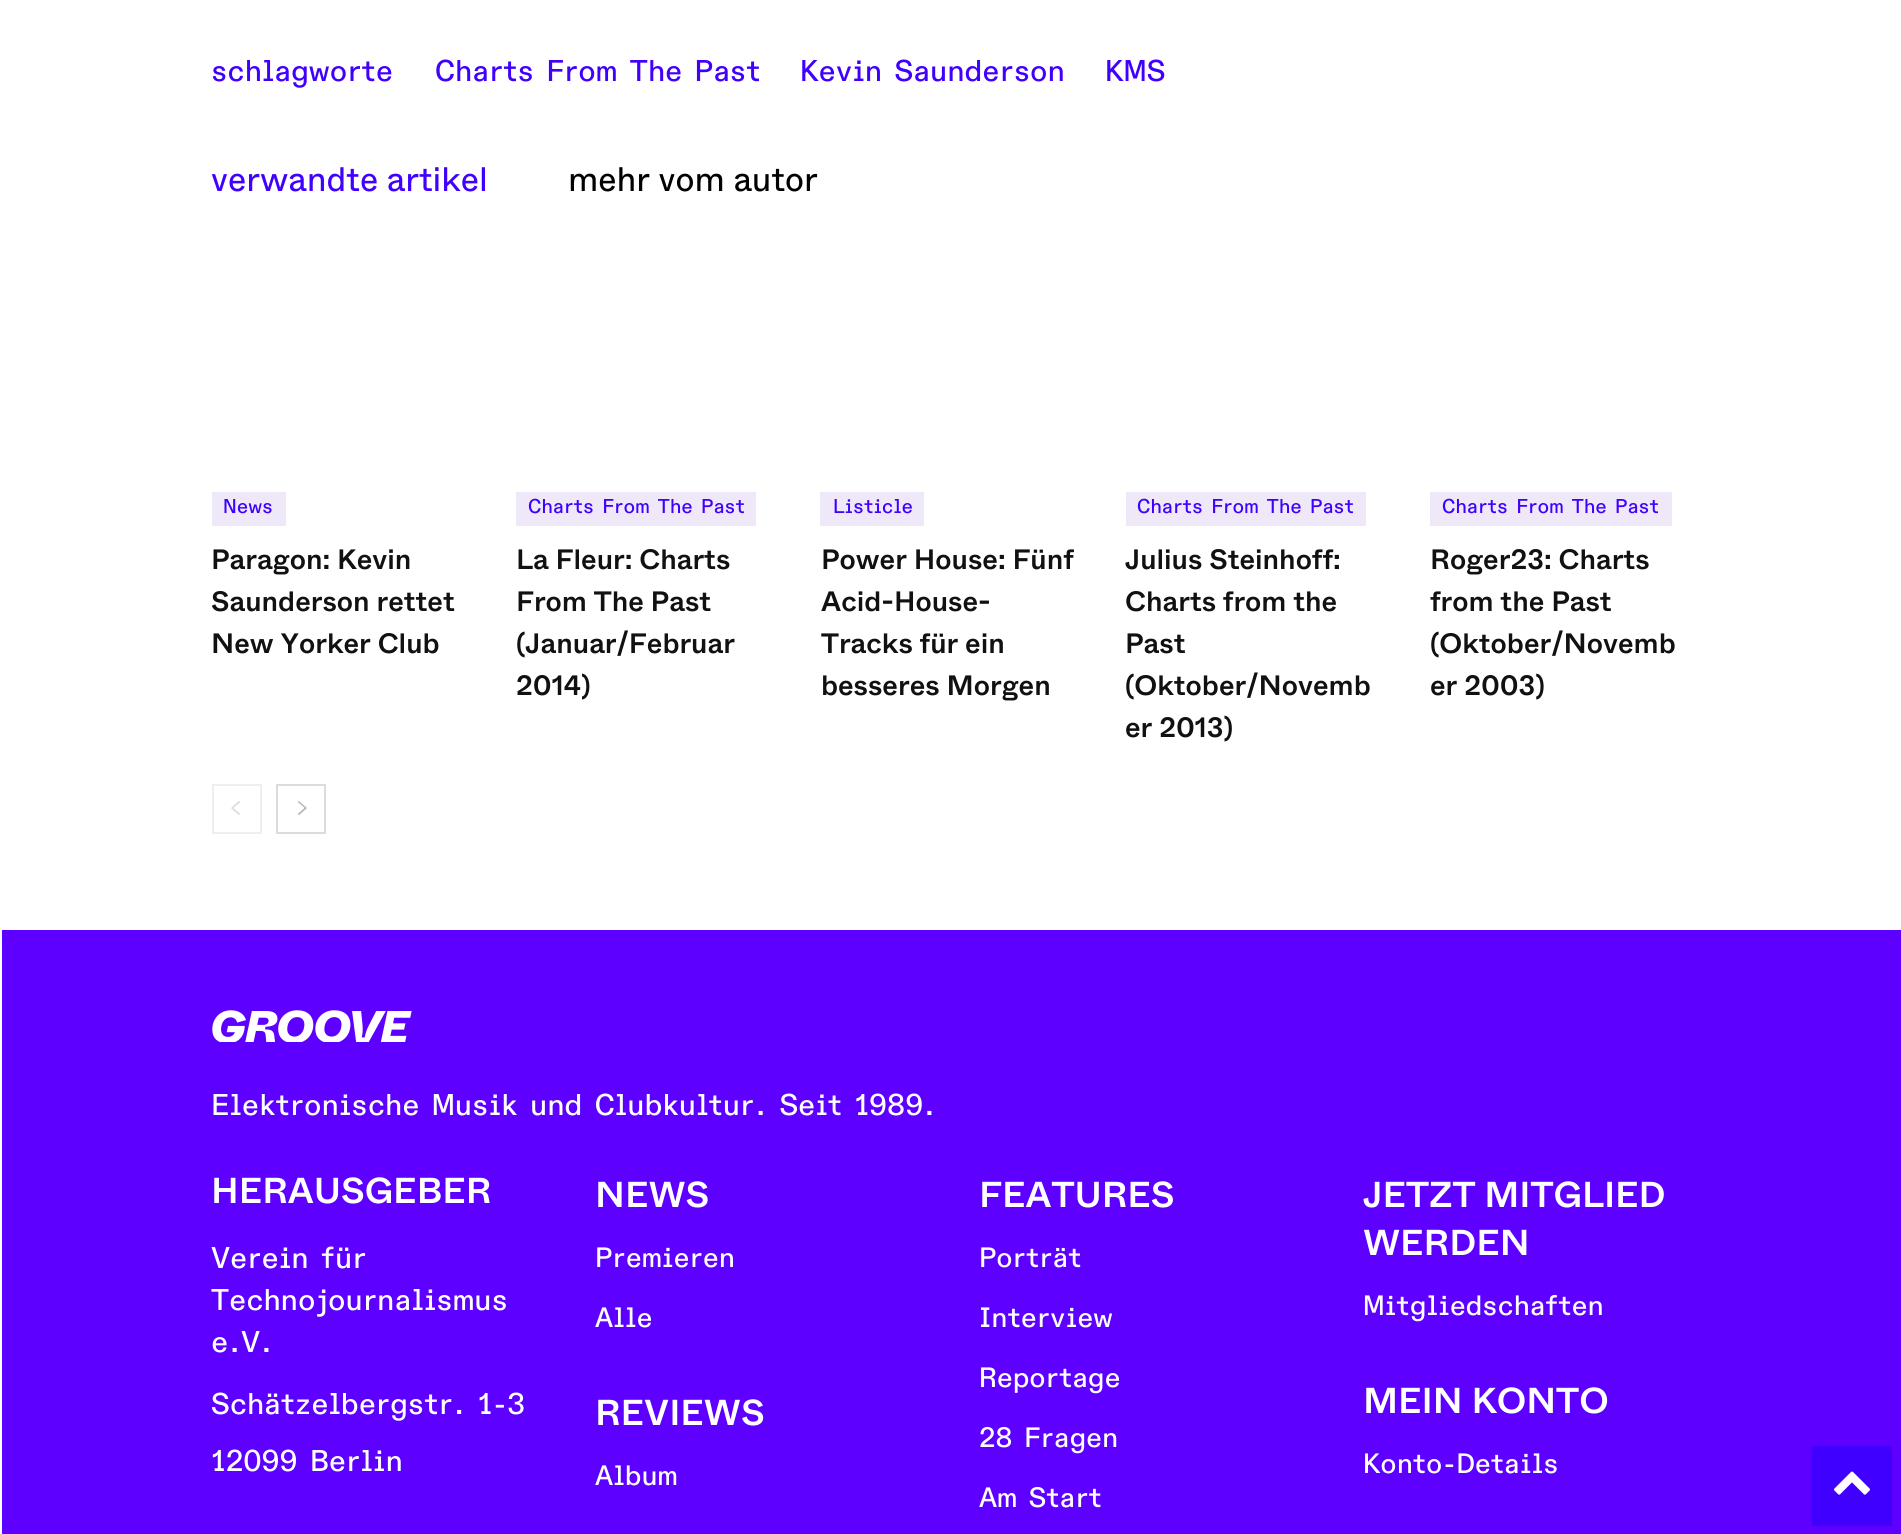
#include <cairo.h>
#include <math.h>
#include <stddef.h>

typedef struct { double x, y; const char *s; } line_t;

static void ink(cairo_t *ctx, unsigned color) {
    cairo_set_source_rgb(ctx, (color >> 16) / 255.0, (color >> 8 & 255) / 255.0, (color & 255) / 255.0);
}

static void paste(cairo_t *ctx, const char *path, double x, double y, double w, double h) {
    cairo_surface_t *image = cairo_image_surface_create_from_png(path);
    cairo_save(ctx);
    cairo_set_source_surface(ctx, image, x, y);
    cairo_rectangle(ctx, x, y, w, h);
    cairo_fill(ctx);
    cairo_restore(ctx);
    cairo_surface_destroy(image);
}

int main(void) {
    cairo_surface_t *surface = cairo_image_surface_create(CAIRO_FORMAT_RGB24, 1901, 1534);
    cairo_t *ctx = cairo_create(surface);
    cairo_font_options_t *options = cairo_font_options_create();
    cairo_font_options_set_hint_metrics(options, CAIRO_HINT_METRICS_OFF);
    cairo_font_options_set_hint_style(options, CAIRO_HINT_STYLE_NONE);
    cairo_set_font_options(ctx, options);
    cairo_set_miter_limit(ctx, 4);
    ink(ctx, 0xFFFFFF);
    cairo_paint(ctx);
    cairo_select_font_face(ctx, "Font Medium", CAIRO_FONT_SLANT_NORMAL, CAIRO_FONT_WEIGHT_NORMAL);
    cairo_set_font_size(ctx, 30);
    ink(ctx, 0x4000FF);
    {
        static const line_t items[] = {
            {211, 81, "schlagworte"},
            {435, 81, "Charts From The Past"},
            {800, 81, "Kevin Saunderson"},
            {1105, 81, "KMS"},
        };
        for (size_t i = 0; i < sizeof items / sizeof *items; i++) {
            cairo_move_to(ctx, items[i].x, items[i].y);
            cairo_show_text(ctx, items[i].s);
        }
    }
    cairo_select_font_face(ctx, "Font", CAIRO_FONT_SLANT_NORMAL, CAIRO_FONT_WEIGHT_NORMAL);
    cairo_set_font_size(ctx, 34);
    cairo_move_to(ctx, 211, 191);
    cairo_show_text(ctx, "verwandte artikel");
    ink(ctx, 0x000000);
    cairo_move_to(ctx, 568, 191);
    cairo_show_text(ctx, "mehr vom autor");
    ink(ctx, 0xEEE8F8);
    cairo_rectangle(ctx, 212, 492, 74, 34);
    cairo_fill(ctx);
    cairo_select_font_face(ctx, "Font Medium", CAIRO_FONT_SLANT_NORMAL, CAIRO_FONT_WEIGHT_NORMAL);
    cairo_set_font_size(ctx, 20);
    ink(ctx, 0x4000FF);
    cairo_move_to(ctx, 223, 513);
    cairo_show_text(ctx, "News");
    cairo_select_font_face(ctx, "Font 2 Medium", CAIRO_FONT_SLANT_NORMAL, CAIRO_FONT_WEIGHT_NORMAL);
    cairo_set_font_size(ctx, 28);
    ink(ctx, 0x111111);
    {
        static const line_t items[] = {
            {211, 569, "Paragon: Kevin"},
            {211, 611, "Saunderson rettet"},
            {211, 653, "New Yorker Club"},
        };
        for (size_t i = 0; i < sizeof items / sizeof *items; i++) {
            cairo_move_to(ctx, items[i].x, items[i].y);
            cairo_show_text(ctx, items[i].s);
        }
    }
    ink(ctx, 0xEEE8F8);
    cairo_rectangle(ctx, 516, 492, 240, 34);
    cairo_fill(ctx);
    cairo_select_font_face(ctx, "Font Medium", CAIRO_FONT_SLANT_NORMAL, CAIRO_FONT_WEIGHT_NORMAL);
    cairo_set_font_size(ctx, 20);
    ink(ctx, 0x4000FF);
    cairo_move_to(ctx, 528, 513);
    cairo_show_text(ctx, "Charts From The Past");
    cairo_select_font_face(ctx, "Font 2 Medium", CAIRO_FONT_SLANT_NORMAL, CAIRO_FONT_WEIGHT_NORMAL);
    cairo_set_font_size(ctx, 28);
    ink(ctx, 0x111111);
    {
        static const line_t items[] = {
            {516, 569, "La Fleur: Charts"},
            {516, 611, "From The Past"},
            {516, 653, "(Januar/Februar"},
            {516, 695, "2014)"},
        };
        for (size_t i = 0; i < sizeof items / sizeof *items; i++) {
            cairo_move_to(ctx, items[i].x, items[i].y);
            cairo_show_text(ctx, items[i].s);
        }
    }
    ink(ctx, 0xEEE8F8);
    cairo_rectangle(ctx, 820, 492, 104, 34);
    cairo_fill(ctx);
    cairo_select_font_face(ctx, "Font Medium", CAIRO_FONT_SLANT_NORMAL, CAIRO_FONT_WEIGHT_NORMAL);
    cairo_set_font_size(ctx, 20);
    ink(ctx, 0x4000FF);
    cairo_move_to(ctx, 833, 513);
    cairo_show_text(ctx, "Listicle");
    cairo_select_font_face(ctx, "Font 2 Medium", CAIRO_FONT_SLANT_NORMAL, CAIRO_FONT_WEIGHT_NORMAL);
    cairo_set_font_size(ctx, 28);
    ink(ctx, 0x111111);
    {
        static const line_t items[] = {
            {821, 569, "Power House: Fünf"},
            {821, 611, "Acid-House-"},
            {821, 653, "Tracks für ein"},
            {821, 695, "besseres Morgen"},
        };
        for (size_t i = 0; i < sizeof items / sizeof *items; i++) {
            cairo_move_to(ctx, items[i].x, items[i].y);
            cairo_show_text(ctx, items[i].s);
        }
    }
    ink(ctx, 0xEEE8F8);
    cairo_rectangle(ctx, 1126, 492, 240, 34);
    cairo_fill(ctx);
    cairo_select_font_face(ctx, "Font Medium", CAIRO_FONT_SLANT_NORMAL, CAIRO_FONT_WEIGHT_NORMAL);
    cairo_set_font_size(ctx, 20);
    ink(ctx, 0x4000FF);
    cairo_move_to(ctx, 1137, 513);
    cairo_show_text(ctx, "Charts From The Past");
    cairo_select_font_face(ctx, "Font 2 Medium", CAIRO_FONT_SLANT_NORMAL, CAIRO_FONT_WEIGHT_NORMAL);
    cairo_set_font_size(ctx, 28);
    ink(ctx, 0x111111);
    {
        static const line_t items[] = {
            {1125, 569, "Julius Steinhoff:"},
            {1125, 611, "Charts from the"},
            {1125, 653, "Past"},
            {1125, 695, "(Oktober/Novemb"},
            {1125, 737, "er 2013)"},
        };
        for (size_t i = 0; i < sizeof items / sizeof *items; i++) {
            cairo_move_to(ctx, items[i].x, items[i].y);
            cairo_show_text(ctx, items[i].s);
        }
    }
    ink(ctx, 0xEEE8F8);
    cairo_rectangle(ctx, 1430, 492, 242, 34);
    cairo_fill(ctx);
    cairo_select_font_face(ctx, "Font Medium", CAIRO_FONT_SLANT_NORMAL, CAIRO_FONT_WEIGHT_NORMAL);
    cairo_set_font_size(ctx, 20);
    ink(ctx, 0x4000FF);
    cairo_move_to(ctx, 1442, 513);
    cairo_show_text(ctx, "Charts From The Past");
    cairo_select_font_face(ctx, "Font 2 Medium", CAIRO_FONT_SLANT_NORMAL, CAIRO_FONT_WEIGHT_NORMAL);
    cairo_set_font_size(ctx, 28);
    ink(ctx, 0x111111);
    {
        static const line_t items[] = {
            {1430, 569, "Roger23: Charts"},
            {1430, 611, "from the Past"},
            {1430, 653, "(Oktober/Novemb"},
            {1430, 695, "er 2003)"},
        };
        for (size_t i = 0; i < sizeof items / sizeof *items; i++) {
            cairo_move_to(ctx, items[i].x, items[i].y);
            cairo_show_text(ctx, items[i].s);
        }
    }
    cairo_rectangle(ctx, 213, 785, 48, 48);
    ink(ctx, 0xEEEEEE);
    cairo_stroke(ctx);
    paste(ctx, "media/1.png", 231, 801, 9, 14);
    cairo_rectangle(ctx, 277, 785, 48, 48);
    ink(ctx, 0xDCDCDC);
    cairo_stroke(ctx);
    paste(ctx, "media/2.png", 298, 801, 9, 14);
    ink(ctx, 0x5D00FF);
    cairo_rectangle(ctx, 2, 930, 1899, 604);
    cairo_fill(ctx);
    paste(ctx, "media/3.png", 212, 1010, 200, 32);
    cairo_select_font_face(ctx, "Font Medium", CAIRO_FONT_SLANT_NORMAL, CAIRO_FONT_WEIGHT_NORMAL);
    cairo_set_font_size(ctx, 30);
    ink(ctx, 0xFFFFFF);
    cairo_move_to(ctx, 211, 1115);
    cairo_show_text(ctx, "Elektronische Musik und Clubkultur. Seit 1989.");
    cairo_select_font_face(ctx, "Font 2 Medium", CAIRO_FONT_SLANT_NORMAL, CAIRO_FONT_WEIGHT_NORMAL);
    cairo_set_font_size(ctx, 36);
    cairo_move_to(ctx, 211, 1203);
    cairo_show_text(ctx, "HERAUSGEBER");
    cairo_select_font_face(ctx, "Font Medium", CAIRO_FONT_SLANT_NORMAL, CAIRO_FONT_WEIGHT_NORMAL);
    cairo_set_font_size(ctx, 30);
    {
        static const line_t items[] = {
            {211, 1268, "Verein für"},
            {211, 1310, "Technojournalismus"},
            {211, 1352, "e.V."},
            {211, 1414, "Schätzelbergstr. 1-3"},
            {211, 1471, "12099 Berlin"},
        };
        for (size_t i = 0; i < sizeof items / sizeof *items; i++) {
            cairo_move_to(ctx, items[i].x, items[i].y);
            cairo_show_text(ctx, items[i].s);
        }
    }
    cairo_select_font_face(ctx, "Font 2 Medium", CAIRO_FONT_SLANT_NORMAL, CAIRO_FONT_WEIGHT_NORMAL);
    cairo_set_font_size(ctx, 36);
    cairo_move_to(ctx, 595, 1207);
    cairo_show_text(ctx, "NEWS");
    cairo_select_font_face(ctx, "Font Medium", CAIRO_FONT_SLANT_NORMAL, CAIRO_FONT_WEIGHT_NORMAL);
    cairo_set_font_size(ctx, 28);
    cairo_move_to(ctx, 595, 1267);
    cairo_show_text(ctx, "Premieren");
    cairo_move_to(ctx, 595, 1327);
    cairo_show_text(ctx, "Alle");
    cairo_select_font_face(ctx, "Font 2 Medium", CAIRO_FONT_SLANT_NORMAL, CAIRO_FONT_WEIGHT_NORMAL);
    cairo_set_font_size(ctx, 36);
    cairo_move_to(ctx, 595, 1425);
    cairo_show_text(ctx, "REVIEWS");
    cairo_select_font_face(ctx, "Font Medium", CAIRO_FONT_SLANT_NORMAL, CAIRO_FONT_WEIGHT_NORMAL);
    cairo_set_font_size(ctx, 28);
    cairo_move_to(ctx, 595, 1485);
    cairo_show_text(ctx, "Album");
    cairo_select_font_face(ctx, "Font 2 Medium", CAIRO_FONT_SLANT_NORMAL, CAIRO_FONT_WEIGHT_NORMAL);
    cairo_set_font_size(ctx, 36);
    cairo_move_to(ctx, 979, 1207);
    cairo_show_text(ctx, "FEATURES");
    cairo_select_font_face(ctx, "Font Medium", CAIRO_FONT_SLANT_NORMAL, CAIRO_FONT_WEIGHT_NORMAL);
    cairo_set_font_size(ctx, 28);
    {
        static const line_t items[] = {
            {979, 1267, "Porträt"},
            {979, 1327, "Interview"},
            {979, 1387, "Reportage"},
            {979, 1447, "28 Fragen"},
            {979, 1507, "Am Start"},
        };
        for (size_t i = 0; i < sizeof items / sizeof *items; i++) {
            cairo_move_to(ctx, items[i].x, items[i].y);
            cairo_show_text(ctx, items[i].s);
        }
    }
    cairo_select_font_face(ctx, "Font 2 Medium", CAIRO_FONT_SLANT_NORMAL, CAIRO_FONT_WEIGHT_NORMAL);
    cairo_set_font_size(ctx, 36);
    cairo_move_to(ctx, 1363, 1207);
    cairo_show_text(ctx, "JETZT MITGLIED");
    cairo_move_to(ctx, 1363, 1255);
    cairo_show_text(ctx, "WERDEN");
    cairo_select_font_face(ctx, "Font Medium", CAIRO_FONT_SLANT_NORMAL, CAIRO_FONT_WEIGHT_NORMAL);
    cairo_set_font_size(ctx, 28);
    cairo_move_to(ctx, 1363, 1315);
    cairo_show_text(ctx, "Mitgliedschaften");
    cairo_select_font_face(ctx, "Font 2 Medium", CAIRO_FONT_SLANT_NORMAL, CAIRO_FONT_WEIGHT_NORMAL);
    cairo_set_font_size(ctx, 36);
    cairo_move_to(ctx, 1363, 1413);
    cairo_show_text(ctx, "MEIN KONTO");
    cairo_select_font_face(ctx, "Font Medium", CAIRO_FONT_SLANT_NORMAL, CAIRO_FONT_WEIGHT_NORMAL);
    cairo_set_font_size(ctx, 28);
    cairo_move_to(ctx, 1363, 1473);
    cairo_show_text(ctx, "Konto-Details");
    ink(ctx, 0x4000FF);
    cairo_rectangle(ctx, 1812, 1446, 80, 80);
    cairo_fill(ctx);
    paste(ctx, "media/4.png", 1834, 1471, 36, 24);
    cairo_surface_write_to_png(surface, "image.png");
    cairo_font_options_destroy(options);
    cairo_destroy(ctx);
    cairo_surface_destroy(surface);
    return 0;
}
